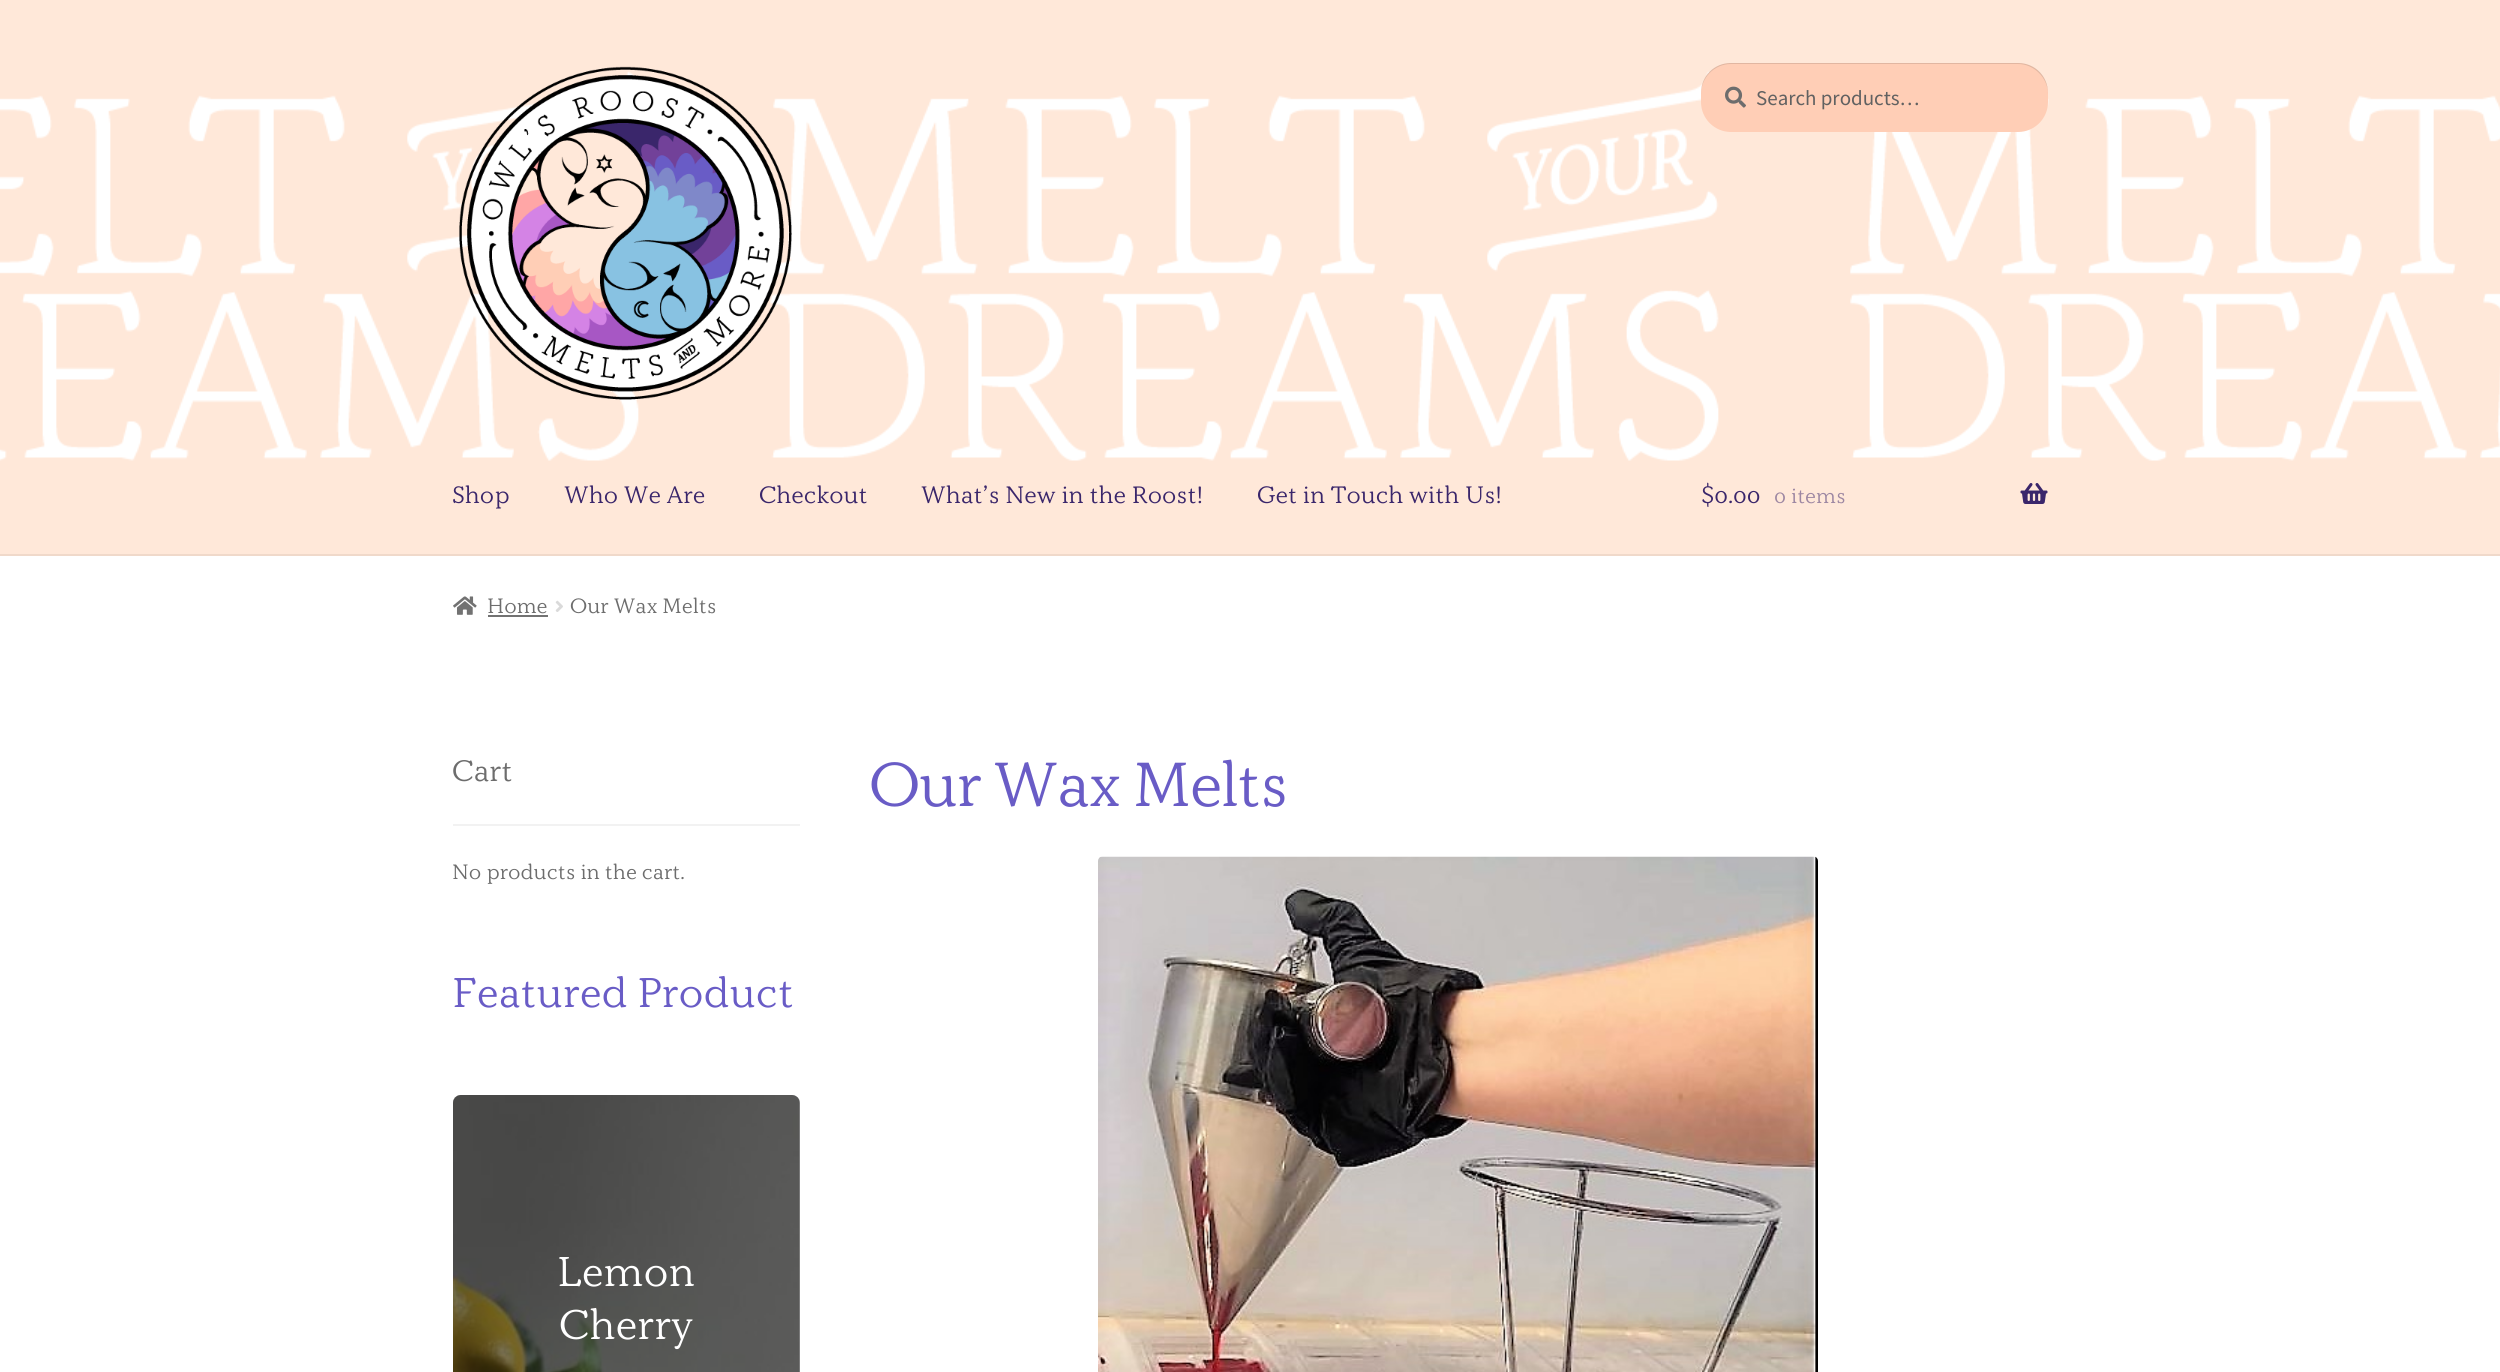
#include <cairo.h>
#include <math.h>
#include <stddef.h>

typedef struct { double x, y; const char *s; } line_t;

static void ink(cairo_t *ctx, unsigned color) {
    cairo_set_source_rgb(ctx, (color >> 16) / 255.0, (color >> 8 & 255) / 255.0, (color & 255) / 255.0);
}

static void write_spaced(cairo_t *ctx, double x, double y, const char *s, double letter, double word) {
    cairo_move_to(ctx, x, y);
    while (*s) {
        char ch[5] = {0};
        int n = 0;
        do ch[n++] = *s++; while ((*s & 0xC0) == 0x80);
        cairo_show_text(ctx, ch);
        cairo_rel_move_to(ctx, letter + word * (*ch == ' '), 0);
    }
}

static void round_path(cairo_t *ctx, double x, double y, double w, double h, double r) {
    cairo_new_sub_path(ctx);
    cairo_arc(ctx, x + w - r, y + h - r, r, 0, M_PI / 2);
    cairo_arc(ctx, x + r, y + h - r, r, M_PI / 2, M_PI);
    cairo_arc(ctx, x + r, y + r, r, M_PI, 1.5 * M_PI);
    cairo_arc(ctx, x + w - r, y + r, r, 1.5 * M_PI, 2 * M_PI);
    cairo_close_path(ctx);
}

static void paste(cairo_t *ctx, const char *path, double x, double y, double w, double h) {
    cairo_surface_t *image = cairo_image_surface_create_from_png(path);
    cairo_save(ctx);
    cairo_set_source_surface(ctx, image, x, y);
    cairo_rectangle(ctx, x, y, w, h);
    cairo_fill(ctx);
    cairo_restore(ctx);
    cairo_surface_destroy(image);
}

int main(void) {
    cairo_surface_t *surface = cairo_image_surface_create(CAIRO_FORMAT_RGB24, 2500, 1372);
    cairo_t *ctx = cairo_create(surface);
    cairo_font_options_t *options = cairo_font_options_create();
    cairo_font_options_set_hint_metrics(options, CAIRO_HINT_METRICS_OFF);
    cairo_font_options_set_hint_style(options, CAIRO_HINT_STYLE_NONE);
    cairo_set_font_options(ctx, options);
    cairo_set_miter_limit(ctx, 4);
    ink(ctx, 0xFFFFFF);
    cairo_paint(ctx);
    ink(ctx, 0xFFE8D9);
    cairo_rectangle(ctx, 0, 0, 2500, 554);
    cairo_fill(ctx);
    paste(ctx, "media/1.png", 0, 71, 2500, 390);
    ink(ctx, 0xF0D9CA);
    cairo_rectangle(ctx, 0, 554, 2500, 2);
    cairo_fill(ctx);
    paste(ctx, "media/2.png", 459, 66, 333, 334);
    ink(ctx, 0xFFCEB6);
    round_path(ctx, 1701, 63, 347, 69, 30);
    cairo_fill(ctx);
    cairo_set_source_rgba(ctx, 0, 0, 0, 0.12);
    cairo_new_path(ctx);
    cairo_move_to(ctx, 1731, 64);
    cairo_line_to(ctx, 2018, 64);
    cairo_curve_to(ctx, 2034, 64, 2048, 78, 2048, 94);
    cairo_line_to(ctx, 2048, 93);
    cairo_curve_to(ctx, 2048, 76, 2035, 63, 2018, 63);
    cairo_line_to(ctx, 1731, 63);
    cairo_curve_to(ctx, 1714, 63, 1701, 76, 1701, 93);
    cairo_line_to(ctx, 1701, 94);
    cairo_curve_to(ctx, 1701, 78, 1714, 64, 1731, 64);
    cairo_close_path(ctx);
    cairo_fill(ctx);
    paste(ctx, "media/3.png", 1725, 86, 21, 22);
    cairo_select_font_face(ctx, "Source Sans Pro", CAIRO_FONT_SLANT_NORMAL, CAIRO_FONT_WEIGHT_NORMAL);
    cairo_set_font_size(ctx, 21);
    ink(ctx, 0x616161);
    cairo_move_to(ctx, 1756, 105);
    cairo_show_text(ctx, "Search products…");
    cairo_select_font_face(ctx, "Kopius", CAIRO_FONT_SLANT_NORMAL, CAIRO_FONT_WEIGHT_NORMAL);
    cairo_set_font_size(ctx, 24);
    ink(ctx, 0x3A266B);
    {
        static const line_t items[] = {
            {452, 503, "Shop"},
            {564, 503, "Who We Are"},
            {759, 503, "Checkout"},
            {921, 503, "What’s New in the Roost!"},
            {1257, 503, "Get in Touch with Us!"},
            {1701, 503, "$0.00"},
        };
        for (size_t i = 0; i < sizeof items / sizeof *items; i++) {
            cairo_move_to(ctx, items[i].x, items[i].y);
            cairo_show_text(ctx, items[i].s);
        }
    }
    cairo_set_font_size(ctx, 21);
    ink(ctx, 0x9D87A2);
    cairo_move_to(ctx, 1774, 503);
    cairo_show_text(ctx, "0 items");
    paste(ctx, "media/4.png", 2020, 483, 28, 21);
    paste(ctx, "media/5.png", 453, 596, 24, 19);
    ink(ctx, 0x6D6D6D);
    cairo_move_to(ctx, 487, 613);
    cairo_show_text(ctx, "Home");
    ink(ctx, 0x727272);
    cairo_rectangle(ctx, 488, 615, 60, 2);
    cairo_fill(ctx);
    paste(ctx, "media/6.png", 555, 600, 8, 12);
    ink(ctx, 0x6D6D6D);
    cairo_move_to(ctx, 570, 613);
    cairo_show_text(ctx, "Our Wax Melts");
    ink(ctx, 0xF2F2F2);
    cairo_rectangle(ctx, 453, 824, 347, 2);
    cairo_fill(ctx);
    cairo_set_font_size(ctx, 30);
    ink(ctx, 0x6D6D6D);
    cairo_move_to(ctx, 452, 781);
    cairo_show_text(ctx, "Cart");
    cairo_set_font_size(ctx, 21);
    cairo_move_to(ctx, 452, 879);
    cairo_show_text(ctx, "No products in the cart.");
    cairo_set_font_size(ctx, 42);
    ink(ctx, 0x695CC6);
    cairo_move_to(ctx, 452, 1007);
    cairo_show_text(ctx, "Featured Product");
    paste(ctx, "media/7.png", 453, 1095, 347, 277);
    cairo_set_source_rgba(ctx, 0, 0, 0, 0.5);
    round_path(ctx, 453, 1095, 347, 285, 8);
    cairo_fill(ctx);
    ink(ctx, 0xFFFFFF);
    cairo_move_to(ctx, 557, 1286);
    cairo_show_text(ctx, "Lemon");
    cairo_move_to(ctx, 559, 1339);
    cairo_show_text(ctx, "Cherry");
    cairo_set_font_size(ctx, 62.75);
    ink(ctx, 0x695CC6);
    write_spaced(ctx, 869, 806, "Our Wax Melts", -1.5, 0);
    paste(ctx, "media/8.png", 1098, 856, 720, 516);
    cairo_surface_write_to_png(surface, "image.png");
    cairo_font_options_destroy(options);
    cairo_destroy(ctx);
    cairo_surface_destroy(surface);
    return 0;
}
